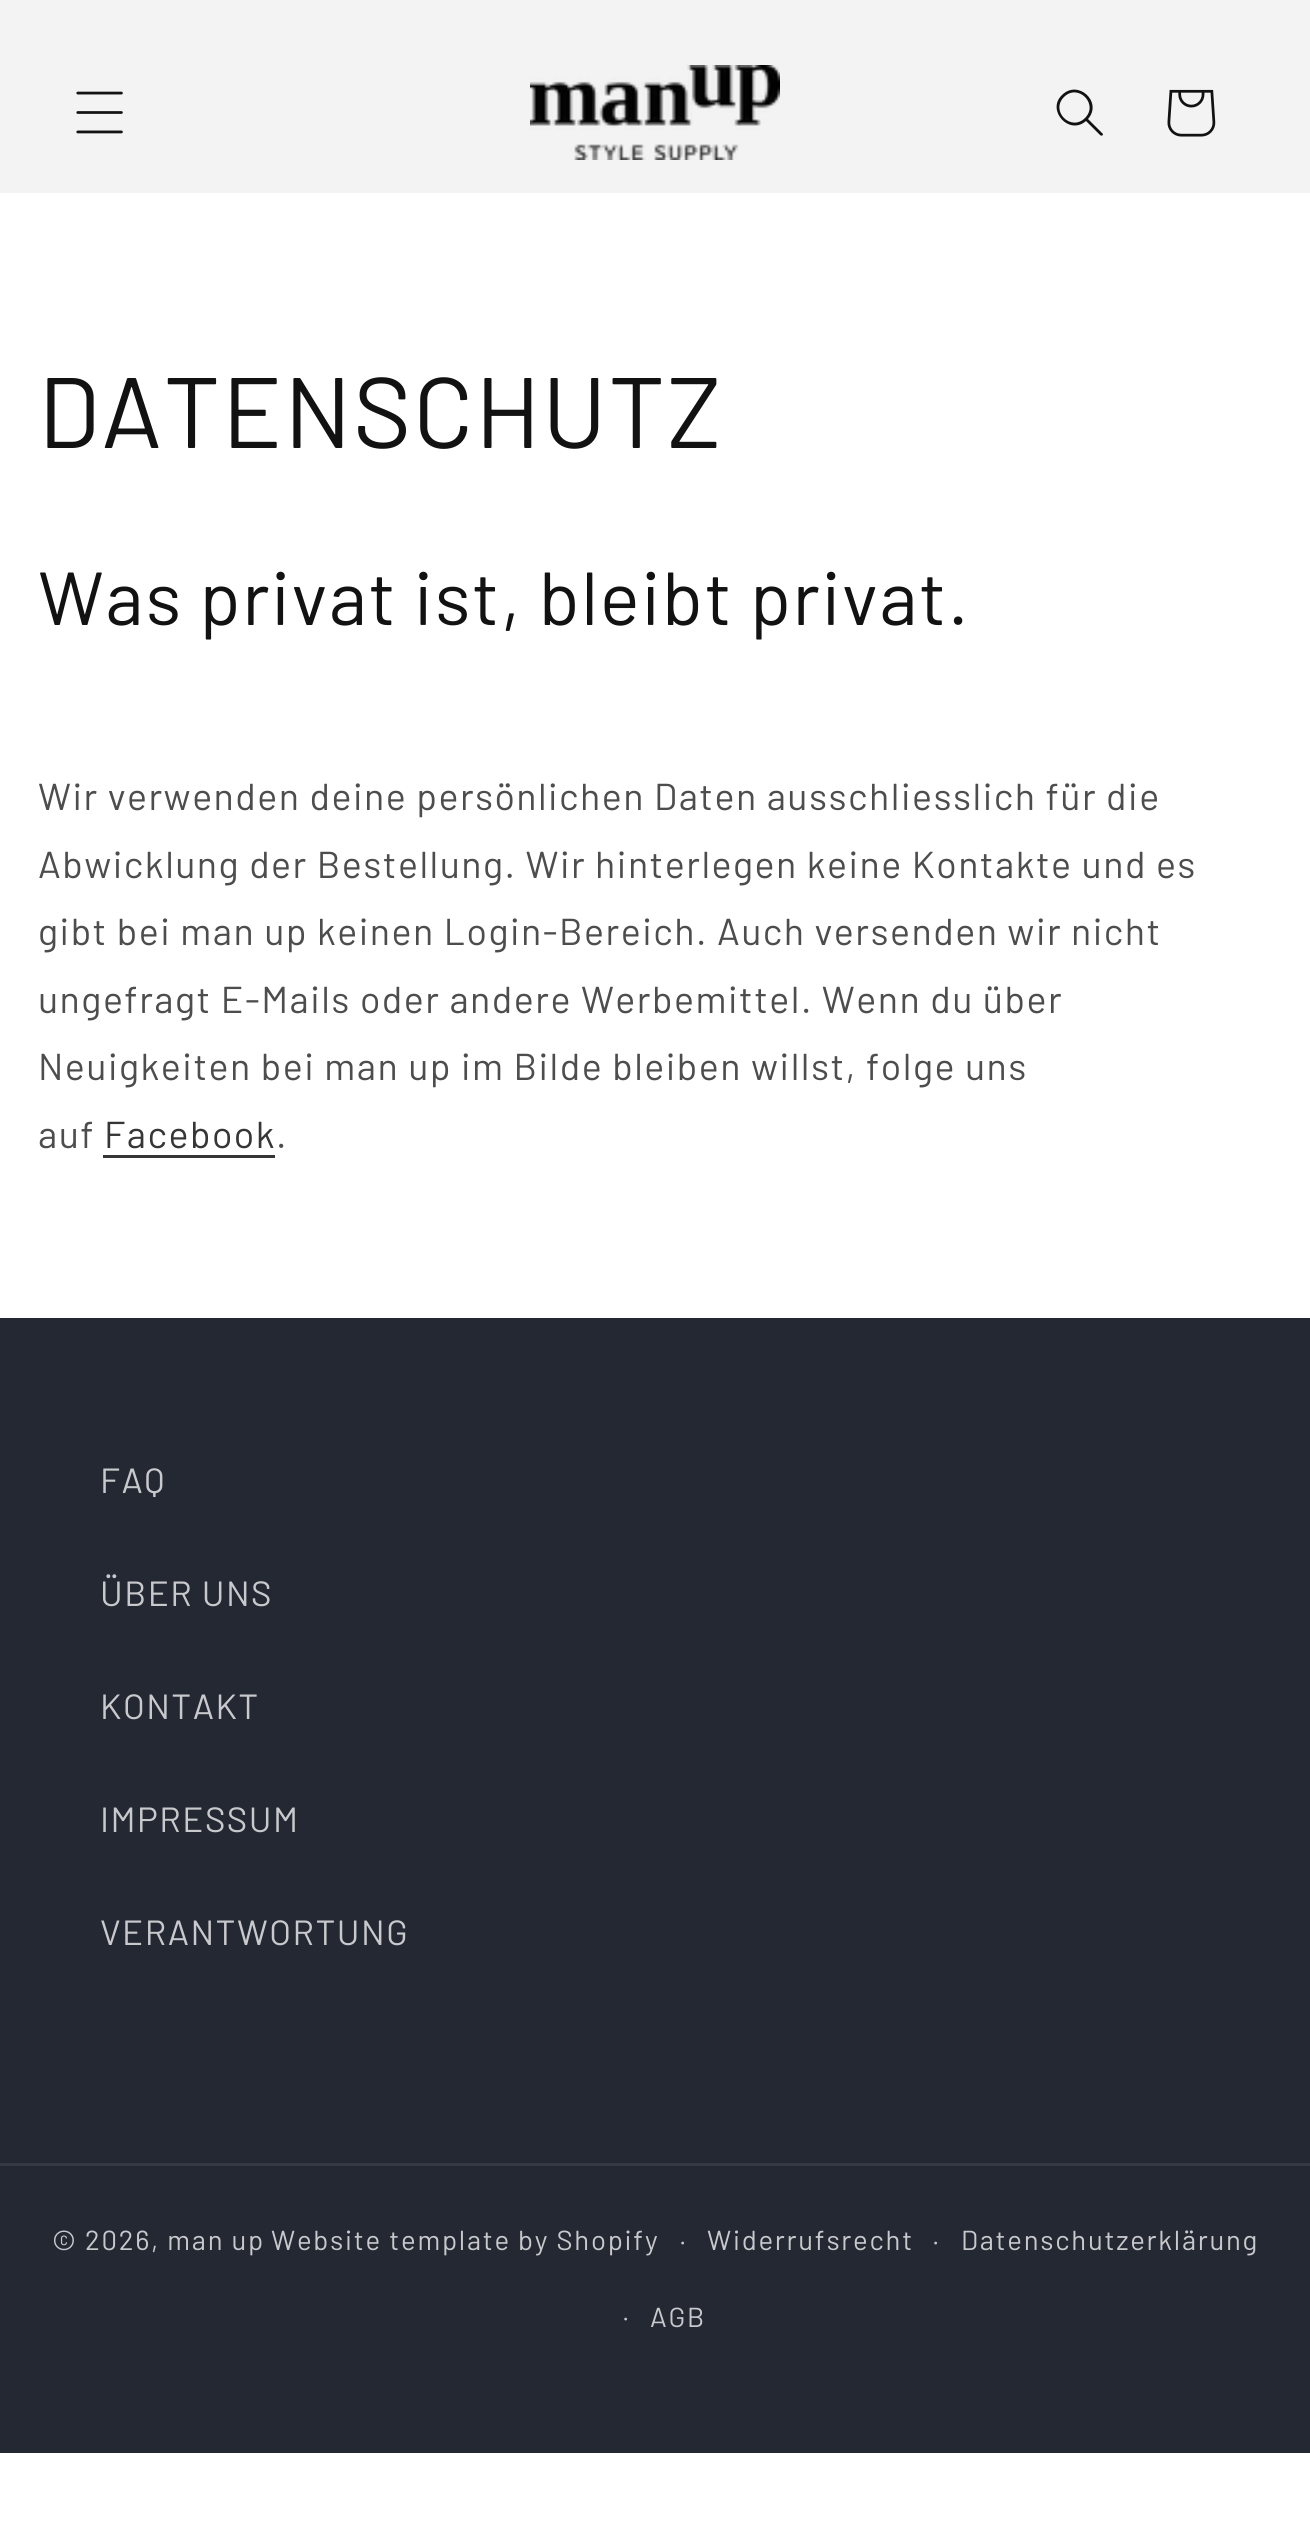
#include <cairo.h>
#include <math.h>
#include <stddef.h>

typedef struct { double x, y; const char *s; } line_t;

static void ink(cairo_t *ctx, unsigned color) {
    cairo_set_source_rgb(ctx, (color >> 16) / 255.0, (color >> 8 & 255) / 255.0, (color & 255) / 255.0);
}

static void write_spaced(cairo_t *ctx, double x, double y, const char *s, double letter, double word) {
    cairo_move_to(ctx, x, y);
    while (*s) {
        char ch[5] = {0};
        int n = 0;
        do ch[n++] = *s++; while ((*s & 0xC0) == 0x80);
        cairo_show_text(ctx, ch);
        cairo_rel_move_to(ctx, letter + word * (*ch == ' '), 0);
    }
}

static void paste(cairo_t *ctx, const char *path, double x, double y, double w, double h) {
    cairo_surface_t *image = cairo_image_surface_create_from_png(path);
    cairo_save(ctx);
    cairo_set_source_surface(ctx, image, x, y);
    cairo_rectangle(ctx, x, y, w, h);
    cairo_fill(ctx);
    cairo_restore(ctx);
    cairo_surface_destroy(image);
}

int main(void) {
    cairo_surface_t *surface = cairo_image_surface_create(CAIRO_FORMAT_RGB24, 1310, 2529);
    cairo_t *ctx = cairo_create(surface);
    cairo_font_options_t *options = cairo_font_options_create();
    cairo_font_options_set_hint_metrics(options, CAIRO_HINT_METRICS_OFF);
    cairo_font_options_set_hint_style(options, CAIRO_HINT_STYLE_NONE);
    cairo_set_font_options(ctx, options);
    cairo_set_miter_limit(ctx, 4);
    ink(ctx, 0xFFFFFF);
    cairo_paint(ctx);
    ink(ctx, 0xF3F3F3);
    cairo_rectangle(ctx, 0, 0, 1310, 193);
    cairo_fill(ctx);
    paste(ctx, "media/1.png", 76, 91, 47, 43);
    paste(ctx, "media/2.png", 530, 65, 250, 95);
    ink(ctx, 0x121212);
    cairo_set_fill_rule(ctx, CAIRO_FILL_RULE_EVEN_ODD);
    cairo_new_path(ctx);
    cairo_move_to(ctx, 1085, 118);
    cairo_curve_to(ctx, 1071, 132, 1050, 111, 1064, 97);
    cairo_curve_to(ctx, 1078, 83, 1099, 104, 1085, 118);
    cairo_move_to(ctx, 1086, 121);
    cairo_curve_to(ctx, 1069, 136, 1046, 110, 1062, 95);
    cairo_curve_to(ctx, 1078, 79, 1103, 102, 1088, 119);
    cairo_line_to(ctx, 1103, 134);
    cairo_curve_to(ctx, 1103, 136, 1101, 136, 1100, 135);
    cairo_close_path(ctx);
    cairo_fill(ctx);
    paste(ctx, "media/3.png", 1167, 89, 49, 48);
    cairo_select_font_face(ctx, "Barlow", CAIRO_FONT_SLANT_NORMAL, CAIRO_FONT_WEIGHT_NORMAL);
    cairo_set_font_size(ctx, 100);
    write_spaced(ctx, 38, 448, "DATENSCHUTZ", 1.5, 0);
    cairo_set_font_size(ctx, 75);
    write_spaced(ctx, 38, 625, "Was privat ist, bleibt privat.", 1.5, 0);
    cairo_set_font_size(ctx, 37.5);
    ink(ctx, 0x4D4D4D);
    {
        static const line_t items[] = {
            {38, 810, "Wir verwenden deine persönlichen Daten ausschliesslich für die"},
            {38, 878, "Abwicklung der Bestellung. Wir hinterlegen keine Kontakte und es"},
            {38, 945, "gibt bei man up keinen Login-Bereich. Auch versenden wir nicht"},
            {38, 1013, "ungefragt E-Mails oder andere Werbemittel. Wenn du über"},
            {38, 1080, "Neuigkeiten bei man up im Bilde bleiben willst, folge uns"},
            {38, 1148, "auf"},
        };
        for (size_t i = 0; i < sizeof items / sizeof *items; i++) {
            write_spaced(ctx, items[i].x, items[i].y, items[i].s, 1.5, 0);
        }
    }
    ink(ctx, 0x363636);
    write_spaced(ctx, 104, 1148, "Facebook", 1.5, 0);
    cairo_rectangle(ctx, 103, 1155, 172, 3);
    cairo_fill(ctx);
    ink(ctx, 0x4D4D4D);
    write_spaced(ctx, 276, 1148, ".", 1.5, 0);
    ink(ctx, 0x242833);
    cairo_rectangle(ctx, 0, 1318, 1310, 1135);
    cairo_fill(ctx);
    cairo_set_font_size(ctx, 35);
    ink(ctx, 0xC8C9CC);
    {
        static const line_t items[] = {
            {100, 1493, "FAQ"},
            {100, 1606, "ÜBER UNS"},
            {100, 1719, "KONTAKT"},
            {100, 1832, "IMPRESSUM"},
            {100, 1945, "VERANTWORTUNG"},
        };
        for (size_t i = 0; i < sizeof items / sizeof *items; i++) {
            write_spaced(ctx, items[i].x, items[i].y, items[i].s, 1.5, 0);
        }
    }
    ink(ctx, 0x363943);
    cairo_rectangle(ctx, 0, 2163, 1310, 3);
    cairo_fill(ctx);
    cairo_set_font_size(ctx, 27.5);
    ink(ctx, 0xC8C9CC);
    write_spaced(ctx, 52, 2250, "© 2026, man up", 1.75, 0);
    write_spaced(ctx, 271, 2250, "Website template by Shopify", 1.75, 0);
    cairo_set_font_size(ctx, 25);
    write_spaced(ctx, 680, 2250, "·", 1.75, 0);
    cairo_set_font_size(ctx, 27.5);
    write_spaced(ctx, 707, 2250, "Widerrufsrecht", 1.75, 0);
    cairo_set_font_size(ctx, 25);
    write_spaced(ctx, 933, 2250, "·", 1.75, 0);
    cairo_set_font_size(ctx, 27.5);
    write_spaced(ctx, 961, 2250, "Datenschutzerklärung", 1.75, 0);
    cairo_set_font_size(ctx, 25);
    write_spaced(ctx, 623, 2326, "·", 1.75, 0);
    cairo_set_font_size(ctx, 27.5);
    write_spaced(ctx, 650, 2327, "AGB", 1.75, 0);
    cairo_surface_write_to_png(surface, "image.png");
    cairo_font_options_destroy(options);
    cairo_destroy(ctx);
    cairo_surface_destroy(surface);
    return 0;
}
